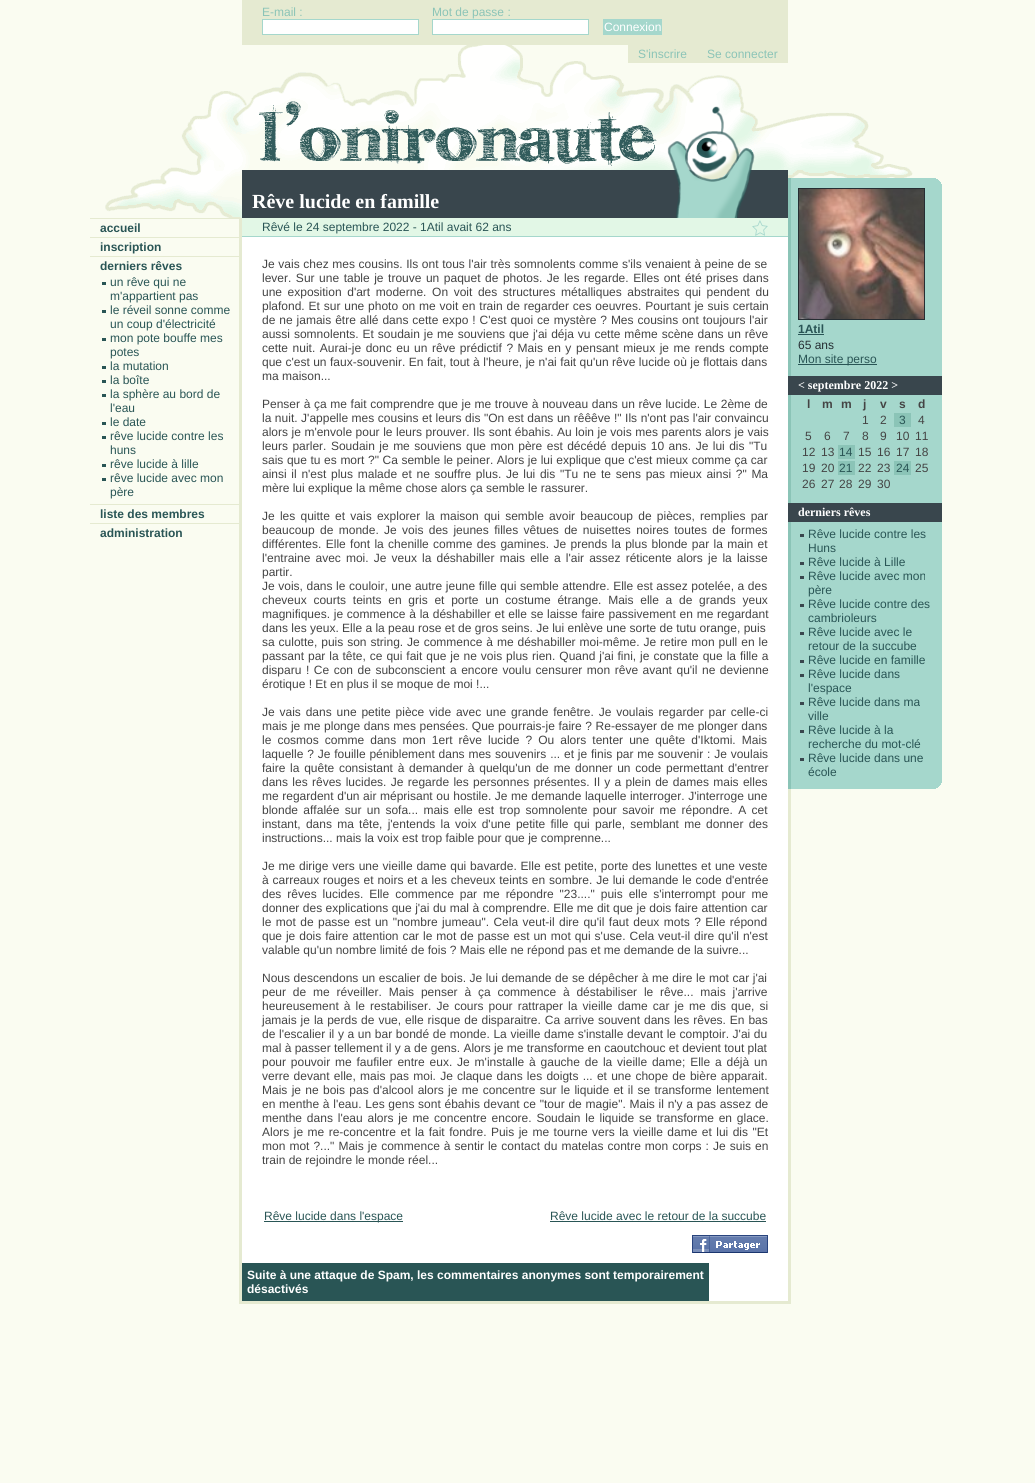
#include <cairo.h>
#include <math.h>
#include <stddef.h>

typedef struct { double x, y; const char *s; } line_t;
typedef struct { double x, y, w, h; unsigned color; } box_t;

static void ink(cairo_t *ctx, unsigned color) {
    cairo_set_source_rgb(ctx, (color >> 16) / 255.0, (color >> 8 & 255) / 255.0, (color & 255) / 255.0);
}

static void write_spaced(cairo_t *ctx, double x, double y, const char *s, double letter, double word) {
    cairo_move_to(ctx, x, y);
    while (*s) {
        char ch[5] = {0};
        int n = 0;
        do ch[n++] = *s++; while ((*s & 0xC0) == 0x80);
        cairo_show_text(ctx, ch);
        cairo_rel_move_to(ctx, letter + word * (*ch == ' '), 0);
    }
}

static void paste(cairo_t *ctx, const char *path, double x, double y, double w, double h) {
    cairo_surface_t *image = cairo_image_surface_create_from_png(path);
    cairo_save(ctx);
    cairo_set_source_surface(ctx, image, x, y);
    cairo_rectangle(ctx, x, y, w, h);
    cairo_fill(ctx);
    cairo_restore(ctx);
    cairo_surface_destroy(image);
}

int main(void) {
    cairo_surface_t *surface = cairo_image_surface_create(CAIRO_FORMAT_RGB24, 1035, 1483);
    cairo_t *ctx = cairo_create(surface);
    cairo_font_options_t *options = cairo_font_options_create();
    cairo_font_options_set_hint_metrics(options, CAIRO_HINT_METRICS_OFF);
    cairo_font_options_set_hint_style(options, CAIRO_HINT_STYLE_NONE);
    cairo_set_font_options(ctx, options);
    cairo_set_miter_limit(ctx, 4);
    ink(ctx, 0xFAFCF1);
    cairo_paint(ctx);
    paste(ctx, "media/1.png", 105, 40, 808, 178);
    ink(ctx, 0xE5EAD1);
    cairo_rectangle(ctx, 242, 0, 546, 45);
    cairo_fill(ctx);
    cairo_select_font_face(ctx, "Liberation Sans", CAIRO_FONT_SLANT_NORMAL, CAIRO_FONT_WEIGHT_NORMAL);
    cairo_set_font_size(ctx, 12);
    ink(ctx, 0x8BC4B7);
    cairo_move_to(ctx, 262, 16);
    cairo_show_text(ctx, "E-mail :");
    ink(ctx, 0xFFFFFF);
    cairo_rectangle(ctx, 262.5, 19.5, 156, 15);
    cairo_fill_preserve(ctx);
    ink(ctx, 0xA5D7CC);
    cairo_set_line_width(ctx, 1);
    cairo_stroke(ctx);
    ink(ctx, 0x8BC4B7);
    cairo_move_to(ctx, 432, 16);
    cairo_show_text(ctx, "Mot de passe :");
    ink(ctx, 0xFFFFFF);
    cairo_rectangle(ctx, 432.5, 19.5, 156, 15);
    cairo_fill_preserve(ctx);
    ink(ctx, 0xA5D7CC);
    cairo_stroke(ctx);
    cairo_rectangle(ctx, 603, 19, 59, 16);
    cairo_fill(ctx);
    ink(ctx, 0xFFFFFF);
    cairo_move_to(ctx, 604, 31);
    cairo_show_text(ctx, "Connexion");
    ink(ctx, 0xE5EAD1);
    cairo_rectangle(ctx, 628, 45, 160, 18);
    cairo_fill(ctx);
    ink(ctx, 0x8BC4B7);
    cairo_move_to(ctx, 638, 58);
    cairo_show_text(ctx, "S'inscrire");
    cairo_move_to(ctx, 707, 58);
    cairo_show_text(ctx, "Se connecter");
    ink(ctx, 0x39464D);
    cairo_rectangle(ctx, 242, 170, 546, 48);
    cairo_fill(ctx);
    cairo_select_font_face(ctx, "Liberation Serif", CAIRO_FONT_SLANT_NORMAL, CAIRO_FONT_WEIGHT_BOLD);
    cairo_set_font_size(ctx, 20);
    ink(ctx, 0xFFFFFF);
    cairo_move_to(ctx, 252, 208);
    cairo_show_text(ctx, "Rêve lucide en famille");
    paste(ctx, "media/2.png", 667, 106, 88, 112);
    ink(ctx, 0xE5EAD1);
    cairo_rectangle(ctx, 90, 218, 149, 1);
    cairo_fill(ctx);
    cairo_select_font_face(ctx, "Liberation Sans", CAIRO_FONT_SLANT_NORMAL, CAIRO_FONT_WEIGHT_BOLD);
    cairo_set_font_size(ctx, 12);
    ink(ctx, 0x295555);
    cairo_move_to(ctx, 100, 232);
    cairo_show_text(ctx, "accueil");
    ink(ctx, 0xE5EAD1);
    cairo_rectangle(ctx, 90, 237, 149, 1);
    cairo_fill(ctx);
    ink(ctx, 0x295555);
    cairo_move_to(ctx, 100, 251);
    cairo_show_text(ctx, "inscription");
    ink(ctx, 0xE5EAD1);
    cairo_rectangle(ctx, 90, 256, 149, 1);
    cairo_fill(ctx);
    ink(ctx, 0x295555);
    cairo_move_to(ctx, 100, 270);
    cairo_show_text(ctx, "derniers rêves");
    cairo_rectangle(ctx, 102, 282, 4, 3);
    cairo_fill(ctx);
    cairo_select_font_face(ctx, "Liberation Sans", CAIRO_FONT_SLANT_NORMAL, CAIRO_FONT_WEIGHT_NORMAL);
    cairo_move_to(ctx, 110, 286);
    cairo_show_text(ctx, "un rêve qui ne");
    cairo_move_to(ctx, 110, 300);
    cairo_show_text(ctx, "m'appartient pas");
    cairo_rectangle(ctx, 102, 310, 4, 3);
    cairo_fill(ctx);
    cairo_move_to(ctx, 110, 314);
    cairo_show_text(ctx, "le réveil sonne comme");
    cairo_move_to(ctx, 110, 328);
    cairo_show_text(ctx, "un coup d'électricité");
    cairo_rectangle(ctx, 102, 338, 4, 3);
    cairo_fill(ctx);
    cairo_move_to(ctx, 110, 342);
    cairo_show_text(ctx, "mon pote bouffe mes");
    cairo_move_to(ctx, 110, 356);
    cairo_show_text(ctx, "potes");
    cairo_rectangle(ctx, 102, 366, 4, 3);
    cairo_fill(ctx);
    cairo_move_to(ctx, 110, 370);
    cairo_show_text(ctx, "la mutation");
    cairo_rectangle(ctx, 102, 380, 4, 3);
    cairo_fill(ctx);
    cairo_move_to(ctx, 110, 384);
    cairo_show_text(ctx, "la boîte");
    cairo_rectangle(ctx, 102, 394, 4, 3);
    cairo_fill(ctx);
    cairo_move_to(ctx, 110, 398);
    cairo_show_text(ctx, "la sphère au bord de");
    cairo_move_to(ctx, 110, 412);
    cairo_show_text(ctx, "l'eau");
    cairo_rectangle(ctx, 102, 422, 4, 3);
    cairo_fill(ctx);
    cairo_move_to(ctx, 110, 426);
    cairo_show_text(ctx, "le date");
    cairo_rectangle(ctx, 102, 436, 4, 3);
    cairo_fill(ctx);
    cairo_move_to(ctx, 110, 440);
    cairo_show_text(ctx, "rêve lucide contre les");
    cairo_move_to(ctx, 110, 454);
    cairo_show_text(ctx, "huns");
    cairo_rectangle(ctx, 102, 464, 4, 3);
    cairo_fill(ctx);
    cairo_move_to(ctx, 110, 468);
    cairo_show_text(ctx, "rêve lucide à lille");
    cairo_rectangle(ctx, 102, 478, 4, 3);
    cairo_fill(ctx);
    cairo_move_to(ctx, 110, 482);
    cairo_show_text(ctx, "rêve lucide avec mon");
    cairo_move_to(ctx, 110, 496);
    cairo_show_text(ctx, "père");
    ink(ctx, 0xE5EAD1);
    cairo_rectangle(ctx, 90, 504, 149, 1);
    cairo_fill(ctx);
    cairo_select_font_face(ctx, "Liberation Sans", CAIRO_FONT_SLANT_NORMAL, CAIRO_FONT_WEIGHT_BOLD);
    ink(ctx, 0x295555);
    cairo_move_to(ctx, 100, 518);
    cairo_show_text(ctx, "liste des membres");
    ink(ctx, 0xE5EAD1);
    cairo_rectangle(ctx, 90, 523, 149, 1);
    cairo_fill(ctx);
    ink(ctx, 0x295555);
    cairo_move_to(ctx, 100, 537);
    cairo_show_text(ctx, "administration");
    {
        static const box_t items[] = {
            {242, 237, 546, 1064, 0xFFFFFF},
            {788, 789, 3, 515, 0xE5EAD1},
            {239, 1301, 552, 3, 0xE5EAD1},
            {239, 218, 3, 1086, 0xE5EAD1},
            {242, 218, 546, 18, 0xE2F7E6},
            {242, 236, 546, 1, 0xA5D7CC},
        };
        for (size_t i = 0; i < sizeof items / sizeof *items; i++) {
            ink(ctx, items[i].color);
            cairo_rectangle(ctx, items[i].x, items[i].y, items[i].w, items[i].h);
            cairo_fill(ctx);
        }
    }
    cairo_select_font_face(ctx, "Liberation Sans", CAIRO_FONT_SLANT_NORMAL, CAIRO_FONT_WEIGHT_NORMAL);
    ink(ctx, 0x295555);
    cairo_move_to(ctx, 262, 231);
    cairo_show_text(ctx, "Rêvé le 24 septembre 2022 - 1Atil avait 62 ans");
    paste(ctx, "media/3.png", 752, 220, 16, 16);
    ink(ctx, 0x444444);
    write_spaced(ctx, 262, 268, "Je vais chez mes cousins. Ils ont tous l'air très somnolents comme s'ils venaient à peine de se", 0, 0.3);
    write_spaced(ctx, 262, 282, "lever. Sur une table je trouve un paquet de photos. Je les regarde. Elles ont été prises dans", 0, 1.2);
    write_spaced(ctx, 262, 296, "une exposition d'art moderne. On voit des structures métalliques abstraites qui pendent du", 0, 2.25);
    write_spaced(ctx, 262, 310, "plafond. Et sur une photo on me voit en train de regarder ces oeuvres. Pourtant je suis certain", 0, 0.5);
    write_spaced(ctx, 262, 324, "de ne jamais être allé dans cette expo ! C'est quoi ce mystère ? Mes cousins ont toujours l'air", 0, 0.6);
    write_spaced(ctx, 262, 338, "aussi somnolents. Et soudain je me souviens que j'ai déja vu cette même scène dans un rêve", 0, 0.6);
    write_spaced(ctx, 262, 352, "cette nuit. Aurai-je donc eu un rêve prédictif ? Mais en y pensant mieux je me rends compte", 0, 1.2);
    write_spaced(ctx, 262, 366, "que c'est un faux-souvenir. En fait, tout à l'heure, je n'ai fait qu'un rêve lucide où je flottais dans", 0, 0.1);
    cairo_move_to(ctx, 262, 380);
    cairo_show_text(ctx, "ma maison...");
    write_spaced(ctx, 262, 408, "Penser à ça me fait comprendre que je me trouve à nouveau dans un rêve lucide. Le 2ème de", 0, 0.3);
    write_spaced(ctx, 262, 422, "la nuit. J'appelle mes cousins et leurs dis \"On est dans un rêêêve !\" Ils n'ont pas l'air convaincu", 0, 0.2);
    write_spaced(ctx, 262, 436, "alors je m'envole pour le leurs prouver. Ils sont ébahis. Au loin je vois mes parents alors je vais", 0, 0.2);
    write_spaced(ctx, 262, 450, "leurs parler. Soudain je me souviens que mon père est décédé depuis 10 ans. Je lui dis \"Tu", 0, 1.1);
    write_spaced(ctx, 262, 464, "sais que tu es mort ?\" Ca semble le peiner. Alors je lui explique que c'est mieux comme ça car", 0, 0.25);
    write_spaced(ctx, 262, 478, "ainsi il n'est plus malade et ne souffre plus. Je lui dis \"Tu ne te sens pas mieux ainsi ?\" Ma", 0, 1.35);
    cairo_move_to(ctx, 262, 492);
    cairo_show_text(ctx, "mère lui explique la même chose alors ça semble le rassurer.");
    write_spaced(ctx, 262, 520, "Je les quitte et vais explorer la maison qui semble avoir beaucoup de pièces, remplies par", 0, 1.9);
    write_spaced(ctx, 262, 534, "beaucoup de monde. Je vois des jeunes filles vêtues de nuisettes noires toutes de formes", 0, 2);
    write_spaced(ctx, 262, 548, "différentes. Elle font la chenille comme des gamines. Je prends la plus blonde par la main et", 0, 1);
    write_spaced(ctx, 262, 562, "l'entraine avec moi. Je veux la déshabiller mais elle a l'air assez réticente alors je la laisse", 0, 1.8);
    cairo_move_to(ctx, 262, 576);
    cairo_show_text(ctx, "partir.");
    write_spaced(ctx, 262, 590, "Je vois, dans le couloir, une autre jeune fille qui semble attendre. Elle est assez potelée, a des", 0, 0.25);
    write_spaced(ctx, 262, 604, "cheveux courts teints en gris et porte un costume étrange. Mais elle a de grands yeux", 0, 3.4);
    write_spaced(ctx, 262, 618, "magnifiques. je commence à la déshabiller et elle se laisse faire passivement en me regardant", 0, 0.4);
    cairo_move_to(ctx, 262, 632);
    cairo_show_text(ctx, "dans les yeux. Elle a la peau rose et de gros seins. Je lui enlève une sorte de tutu orange, puis");
    write_spaced(ctx, 262, 646, "sa culotte, puis son string. Je commence à me déshabiller moi-même. Je retire mon pull en le", 0, 0.6);
    write_spaced(ctx, 262, 660, "passant par la tête, ce qui fait que je ne vois plus rien. Quand j'ai fini, je constate que la fille a", 0, 0.6);
    write_spaced(ctx, 262, 674, "disparu ! Ce con de subconscient a encore voulu censurer mon rêve avant qu'il ne devienne", 0, 1.2);
    cairo_move_to(ctx, 262, 688);
    cairo_show_text(ctx, "érotique ! Et en plus il se moque de moi !...");
    write_spaced(ctx, 262, 716, "Je vais dans une petite pièce vide avec une grande fenêtre. Je voulais regarder par celle-ci", 0, 1.5);
    write_spaced(ctx, 262, 730, "mais je me plonge dans mes pensées. Que pourrais-je faire ? Re-essayer de me plonger dans", 0, 0.25);
    write_spaced(ctx, 262, 744, "le cosmos comme dans mon 1ert rêve lucide ? Ou alors tenter une quête d'Iktomi. Mais", 0, 2.75);
    write_spaced(ctx, 262, 758, "laquelle ? Je fouille péniblement dans mes souvenirs ... et je finis par me souvenir : Je voulais", 0, 0.5);
    write_spaced(ctx, 262, 772, "faire la quête consistant à demander à quelqu'un de me donner un code permettant d'entrer", 0, 1.4);
    write_spaced(ctx, 262, 786, "dans les rêves lucides. Je regarde les personnes présentes. Il y a plein de dames mais elles", 0, 1);
    write_spaced(ctx, 262, 800, "me regardent d'un air méprisant ou hostile. Je me demande laquelle interroger. J'interroge une", 0, 0.25);
    write_spaced(ctx, 262, 814, "blonde affalée sur un sofa... mais elle est trop somnolente pour savoir me répondre. A cet", 0, 2);
    write_spaced(ctx, 262, 828, "instant, dans ma tête, j'entends la voix d'une petite fille qui parle, semblant me donner des", 0, 1.9);
    cairo_move_to(ctx, 262, 842);
    cairo_show_text(ctx, "instructions... mais la voix est trop faible pour que je comprenne...");
    write_spaced(ctx, 262, 870, "Je me dirige vers une vieille dame qui bavarde. Elle est petite, porte des lunettes et une veste", 0, 0.5);
    write_spaced(ctx, 262, 884, "à carreaux rouges et noirs et a les cheveux teints en sombre. Je lui demande le code d'entrée", 0, 0.5);
    write_spaced(ctx, 262, 898, "des rêves lucides. Elle commence par me répondre \"23....\" puis elle s'interrompt pour me", 0, 2.6);
    write_spaced(ctx, 262, 912, "donner des explications que j'ai du mal à comprendre. Elle me dit que je dois faire attention car", 0, 0.1);
    write_spaced(ctx, 262, 926, "le mot de passe est un \"nombre jumeau\". Cela veut-il dire qu'il faut deux mots ? Elle répond", 0, 1.1);
    write_spaced(ctx, 262, 940, "que je dois faire attention car le mot de passe est un mot qui s'use. Cela veut-il dire qu'il n'est", 0, 0.6);
    cairo_move_to(ctx, 262, 954);
    cairo_show_text(ctx, "valable qu'un nombre limité de fois ? Mais elle ne répond pas et me demande de la suivre...");
    write_spaced(ctx, 262, 982, "Nous descendons un escalier de bois. Je lui demande de se dépêcher à me dire le mot car j'ai", 0, 0.25);
    write_spaced(ctx, 262, 996, "peur de me réveiller. Mais penser à ça commence à déstabiliser le rêve... mais j'arrive", 0, 3.5);
    write_spaced(ctx, 262, 1010, "heureusement à le restabiliser. Je cours pour rattraper la vieille dame car je me dis que, si", 0, 1.75);
    write_spaced(ctx, 262, 1024, "jamais je la perds de vue, elle risque de disparaitre. Ca arrive souvent dans les rêves. En bas", 0, 0.6);
    write_spaced(ctx, 262, 1038, "de l'escalier il y a un bar bondé de monde. La vieille dame s'installe devant le comptoir. J'ai du", 0, 0.3);
    cairo_move_to(ctx, 262, 1052);
    cairo_show_text(ctx, "mal à passer tellement il y a de gens. Alors je me transforme en caoutchouc et devient tout plat");
    write_spaced(ctx, 262, 1066, "pour pouvoir me faufiler entre eux. Je m'installe à gauche de la vieille dame; Elle a déjà un", 0, 1.5);
    write_spaced(ctx, 262, 1080, "verre devant elle, mais pas moi. Je claque dans les doigts ... et une chope de bière apparait.", 0, 0.9);
    write_spaced(ctx, 262, 1094, "Mais je ne bois pas d'alcool alors je me concentre sur le liquide et il se transforme lentement", 0, 1);
    write_spaced(ctx, 262, 1108, "en menthe à l'eau. Les gens sont ébahis devant ce \"tour de magie\". Mais il n'y a pas assez de", 0, 0.4);
    write_spaced(ctx, 262, 1122, "menthe dans l'eau alors je me concentre encore. Soudain le liquide se transforme en glace.", 0, 1.5);
    write_spaced(ctx, 262, 1136, "Alors je me re-concentre et la fait fondre. Puis je me tourne vers la vieille dame et lui dis \"Et", 0, 1.1);
    write_spaced(ctx, 262, 1150, "mon mot ?...\" Mais je commence à sentir le contact du matelas contre mon corps : Je suis en", 0, 0.7);
    cairo_move_to(ctx, 262, 1164);
    cairo_show_text(ctx, "train de rejoindre le monde réel...");
    ink(ctx, 0x295555);
    cairo_rectangle(ctx, 264, 1221, 139, 1);
    cairo_fill(ctx);
    cairo_move_to(ctx, 264, 1220);
    cairo_show_text(ctx, "Rêve lucide dans l'espace");
    cairo_move_to(ctx, 550, 1220);
    cairo_show_text(ctx, "Rêve lucide avec le retour de la succube");
    cairo_rectangle(ctx, 550, 1221, 216, 1);
    cairo_fill(ctx);
    paste(ctx, "media/4.png", 692, 1235, 76, 18);
    cairo_rectangle(ctx, 242, 1263, 467, 38);
    cairo_fill(ctx);
    cairo_select_font_face(ctx, "Liberation Sans", CAIRO_FONT_SLANT_NORMAL, CAIRO_FONT_WEIGHT_BOLD);
    ink(ctx, 0xFFFFFF);
    cairo_move_to(ctx, 247, 1279);
    cairo_show_text(ctx, "Suite à une attaque de Spam, les commentaires anonymes sont temporairement");
    cairo_move_to(ctx, 247, 1293);
    cairo_show_text(ctx, "désactivés");
    {
        static const box_t items[] = {
            {791, 178, 151, 611, 0xA5D7CC},
            {788, 178, 3, 611, 0x8BC4B7},
            {936, 178, 6, 1, 0xFAFCF1},
            {938, 179, 4, 1, 0xFAFCF1},
            {939, 180, 3, 1, 0xFAFCF1},
            {940, 181, 2, 1, 0xFAFCF1},
            {941, 182, 1, 2, 0xFAFCF1},
        };
        for (size_t i = 0; i < sizeof items / sizeof *items; i++) {
            ink(ctx, items[i].color);
            cairo_rectangle(ctx, items[i].x, items[i].y, items[i].w, items[i].h);
            cairo_fill(ctx);
        }
    }
    cairo_rectangle(ctx, 798.5, 188.5, 126, 131);
    ink(ctx, 0x262E33);
    cairo_stroke(ctx);
    paste(ctx, "media/5.png", 799, 189, 125, 130);
    ink(ctx, 0x295555);
    cairo_move_to(ctx, 798, 333);
    cairo_show_text(ctx, "1Atil");
    cairo_rectangle(ctx, 798, 334, 26, 1);
    cairo_fill(ctx);
    cairo_select_font_face(ctx, "Liberation Sans", CAIRO_FONT_SLANT_NORMAL, CAIRO_FONT_WEIGHT_NORMAL);
    ink(ctx, 0x262E33);
    cairo_move_to(ctx, 798, 349);
    cairo_show_text(ctx, "65 ans");
    ink(ctx, 0x295555);
    cairo_rectangle(ctx, 798, 364, 79, 1);
    cairo_fill(ctx);
    cairo_move_to(ctx, 798, 363);
    cairo_show_text(ctx, "Mon site perso");
    ink(ctx, 0x39464D);
    cairo_rectangle(ctx, 788, 376, 154, 19);
    cairo_fill(ctx);
    cairo_select_font_face(ctx, "Liberation Serif", CAIRO_FONT_SLANT_NORMAL, CAIRO_FONT_WEIGHT_BOLD);
    ink(ctx, 0xFFFFFF);
    cairo_move_to(ctx, 798, 389);
    cairo_show_text(ctx, "< septembre 2022 >");
    cairo_select_font_face(ctx, "Liberation Sans", CAIRO_FONT_SLANT_NORMAL, CAIRO_FONT_WEIGHT_BOLD);
    ink(ctx, 0x444444);
    {
        static const line_t items[] = {
            {807, 408, "l"},
            {822, 408, "m"},
            {841, 408, "m"},
            {863, 408, "j"},
            {880, 408, "v"},
            {899, 408, "s"},
            {918, 408, "d"},
        };
        for (size_t i = 0; i < sizeof items / sizeof *items; i++) {
            cairo_move_to(ctx, items[i].x, items[i].y);
            cairo_show_text(ctx, items[i].s);
        }
    }
    cairo_select_font_face(ctx, "Liberation Sans", CAIRO_FONT_SLANT_NORMAL, CAIRO_FONT_WEIGHT_NORMAL);
    cairo_move_to(ctx, 862, 424);
    cairo_show_text(ctx, "1");
    cairo_move_to(ctx, 880, 424);
    cairo_show_text(ctx, "2");
    ink(ctx, 0x8BC4B7);
    cairo_rectangle(ctx, 894, 413, 17, 14);
    cairo_fill(ctx);
    ink(ctx, 0x295555);
    cairo_move_to(ctx, 899, 424);
    cairo_show_text(ctx, "3");
    ink(ctx, 0x444444);
    {
        static const line_t items[] = {
            {918, 424, "4"},
            {805, 440, "5"},
            {824, 440, "6"},
            {843, 440, "7"},
            {862, 440, "8"},
            {880, 440, "9"},
            {896, 440, "10"},
            {915, 440, "11"},
            {802, 456, "12"},
            {821, 456, "13"},
        };
        for (size_t i = 0; i < sizeof items / sizeof *items; i++) {
            cairo_move_to(ctx, items[i].x, items[i].y);
            cairo_show_text(ctx, items[i].s);
        }
    }
    ink(ctx, 0x8BC4B7);
    cairo_rectangle(ctx, 838, 445, 17, 14);
    cairo_fill(ctx);
    ink(ctx, 0x295555);
    cairo_move_to(ctx, 839, 456);
    cairo_show_text(ctx, "14");
    ink(ctx, 0x444444);
    {
        static const line_t items[] = {
            {858, 456, "15"},
            {877, 456, "16"},
            {896, 456, "17"},
            {915, 456, "18"},
            {802, 472, "19"},
            {821, 472, "20"},
        };
        for (size_t i = 0; i < sizeof items / sizeof *items; i++) {
            cairo_move_to(ctx, items[i].x, items[i].y);
            cairo_show_text(ctx, items[i].s);
        }
    }
    ink(ctx, 0x8BC4B7);
    cairo_rectangle(ctx, 838, 461, 17, 14);
    cairo_fill(ctx);
    ink(ctx, 0x295555);
    cairo_move_to(ctx, 839, 472);
    cairo_show_text(ctx, "21");
    ink(ctx, 0x444444);
    cairo_move_to(ctx, 858, 472);
    cairo_show_text(ctx, "22");
    cairo_move_to(ctx, 877, 472);
    cairo_show_text(ctx, "23");
    ink(ctx, 0x8BC4B7);
    cairo_rectangle(ctx, 894, 461, 17, 14);
    cairo_fill(ctx);
    ink(ctx, 0x295555);
    cairo_move_to(ctx, 896, 472);
    cairo_show_text(ctx, "24");
    ink(ctx, 0x444444);
    {
        static const line_t items[] = {
            {915, 472, "25"},
            {802, 488, "26"},
            {821, 488, "27"},
            {839, 488, "28"},
            {858, 488, "29"},
            {877, 488, "30"},
        };
        for (size_t i = 0; i < sizeof items / sizeof *items; i++) {
            cairo_move_to(ctx, items[i].x, items[i].y);
            cairo_show_text(ctx, items[i].s);
        }
    }
    ink(ctx, 0x39464D);
    cairo_rectangle(ctx, 788, 503, 154, 19);
    cairo_fill(ctx);
    cairo_select_font_face(ctx, "Liberation Serif", CAIRO_FONT_SLANT_NORMAL, CAIRO_FONT_WEIGHT_BOLD);
    ink(ctx, 0xFFFFFF);
    cairo_move_to(ctx, 798, 516);
    cairo_show_text(ctx, "derniers rêves");
    ink(ctx, 0x39464D);
    cairo_rectangle(ctx, 800, 534, 4, 3);
    cairo_fill(ctx);
    cairo_select_font_face(ctx, "Liberation Sans", CAIRO_FONT_SLANT_NORMAL, CAIRO_FONT_WEIGHT_NORMAL);
    ink(ctx, 0x295555);
    cairo_move_to(ctx, 808, 538);
    cairo_show_text(ctx, "Rêve lucide contre les");
    cairo_move_to(ctx, 808, 552);
    cairo_show_text(ctx, "Huns");
    ink(ctx, 0x39464D);
    cairo_rectangle(ctx, 800, 562, 4, 3);
    cairo_fill(ctx);
    ink(ctx, 0x295555);
    cairo_move_to(ctx, 808, 566);
    cairo_show_text(ctx, "Rêve lucide à Lille");
    ink(ctx, 0x39464D);
    cairo_rectangle(ctx, 800, 576, 4, 3);
    cairo_fill(ctx);
    ink(ctx, 0x295555);
    cairo_move_to(ctx, 808, 580);
    cairo_show_text(ctx, "Rêve lucide avec mon");
    cairo_move_to(ctx, 808, 594);
    cairo_show_text(ctx, "père");
    ink(ctx, 0x39464D);
    cairo_rectangle(ctx, 800, 604, 4, 3);
    cairo_fill(ctx);
    ink(ctx, 0x295555);
    cairo_move_to(ctx, 808, 608);
    cairo_show_text(ctx, "Rêve lucide contre des");
    cairo_move_to(ctx, 808, 622);
    cairo_show_text(ctx, "cambrioleurs");
    ink(ctx, 0x39464D);
    cairo_rectangle(ctx, 800, 632, 4, 3);
    cairo_fill(ctx);
    ink(ctx, 0x295555);
    cairo_move_to(ctx, 808, 636);
    cairo_show_text(ctx, "Rêve lucide avec le");
    cairo_move_to(ctx, 808, 650);
    cairo_show_text(ctx, "retour de la succube");
    ink(ctx, 0x39464D);
    cairo_rectangle(ctx, 800, 660, 4, 3);
    cairo_fill(ctx);
    ink(ctx, 0x295555);
    cairo_move_to(ctx, 808, 664);
    cairo_show_text(ctx, "Rêve lucide en famille");
    ink(ctx, 0x39464D);
    cairo_rectangle(ctx, 800, 674, 4, 3);
    cairo_fill(ctx);
    ink(ctx, 0x295555);
    cairo_move_to(ctx, 808, 678);
    cairo_show_text(ctx, "Rêve lucide dans");
    cairo_move_to(ctx, 808, 692);
    cairo_show_text(ctx, "l'espace");
    ink(ctx, 0x39464D);
    cairo_rectangle(ctx, 800, 702, 4, 3);
    cairo_fill(ctx);
    ink(ctx, 0x295555);
    cairo_move_to(ctx, 808, 706);
    cairo_show_text(ctx, "Rêve lucide dans ma");
    cairo_move_to(ctx, 808, 720);
    cairo_show_text(ctx, "ville");
    ink(ctx, 0x39464D);
    cairo_rectangle(ctx, 800, 730, 4, 3);
    cairo_fill(ctx);
    ink(ctx, 0x295555);
    cairo_move_to(ctx, 808, 734);
    cairo_show_text(ctx, "Rêve lucide à la");
    cairo_move_to(ctx, 808, 748);
    cairo_show_text(ctx, "recherche du mot-clé");
    ink(ctx, 0x39464D);
    cairo_rectangle(ctx, 800, 758, 4, 3);
    cairo_fill(ctx);
    ink(ctx, 0x295555);
    cairo_move_to(ctx, 808, 762);
    cairo_show_text(ctx, "Rêve lucide dans une");
    cairo_move_to(ctx, 808, 776);
    cairo_show_text(ctx, "école");
    {
        static const box_t items[] = {
            {941, 783, 1, 2, 0xFAFCF1},
            {940, 785, 2, 1, 0xFAFCF1},
            {939, 786, 3, 1, 0xFAFCF1},
            {938, 787, 4, 1, 0xFAFCF1},
            {936, 788, 6, 1, 0xFAFCF1},
        };
        for (size_t i = 0; i < sizeof items / sizeof *items; i++) {
            ink(ctx, items[i].color);
            cairo_rectangle(ctx, items[i].x, items[i].y, items[i].w, items[i].h);
            cairo_fill(ctx);
        }
    }
    cairo_surface_write_to_png(surface, "image.png");
    cairo_font_options_destroy(options);
    cairo_destroy(ctx);
    cairo_surface_destroy(surface);
    return 0;
}
